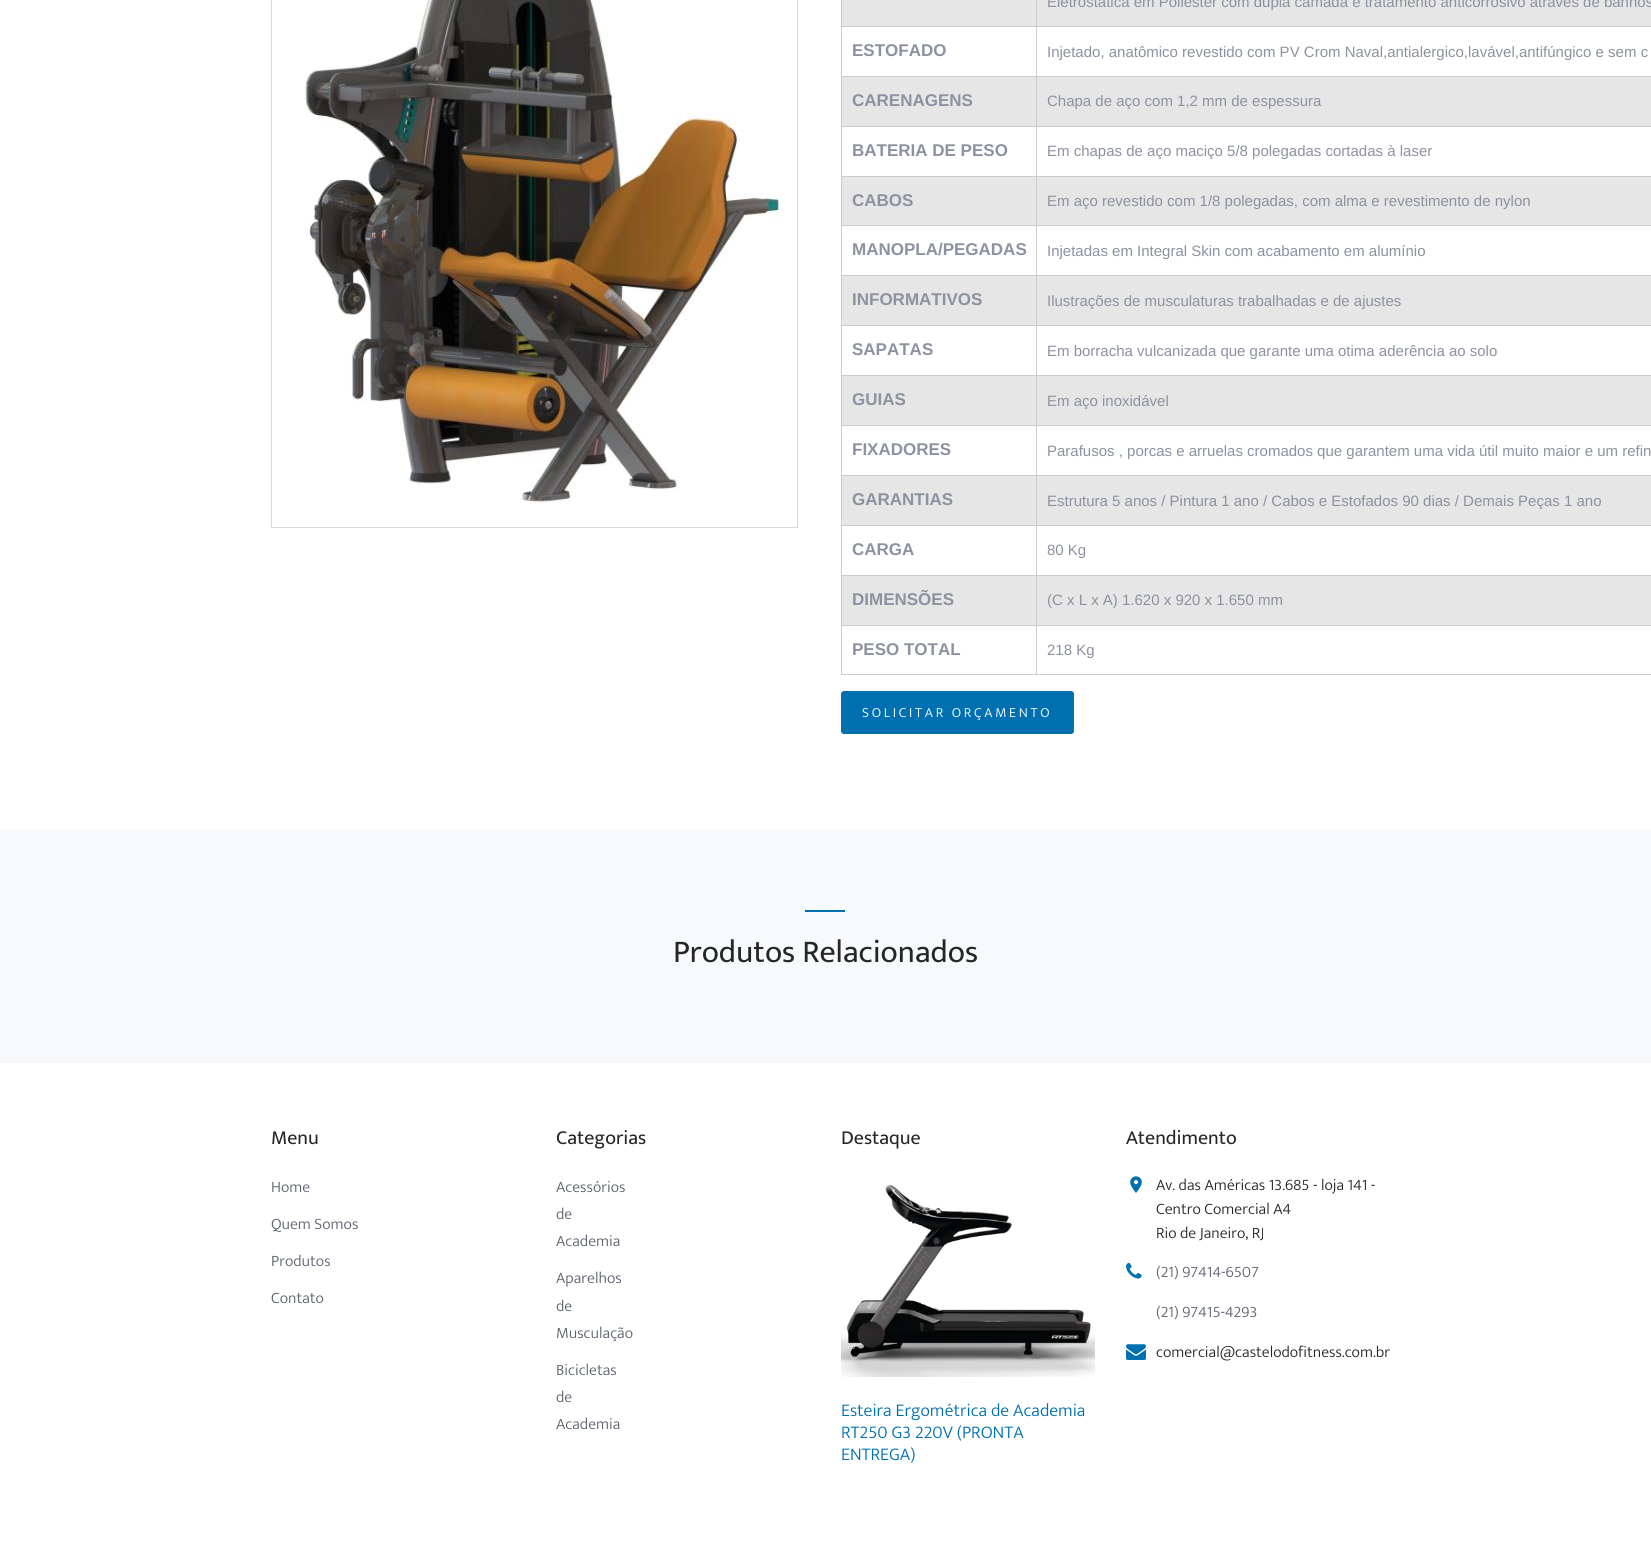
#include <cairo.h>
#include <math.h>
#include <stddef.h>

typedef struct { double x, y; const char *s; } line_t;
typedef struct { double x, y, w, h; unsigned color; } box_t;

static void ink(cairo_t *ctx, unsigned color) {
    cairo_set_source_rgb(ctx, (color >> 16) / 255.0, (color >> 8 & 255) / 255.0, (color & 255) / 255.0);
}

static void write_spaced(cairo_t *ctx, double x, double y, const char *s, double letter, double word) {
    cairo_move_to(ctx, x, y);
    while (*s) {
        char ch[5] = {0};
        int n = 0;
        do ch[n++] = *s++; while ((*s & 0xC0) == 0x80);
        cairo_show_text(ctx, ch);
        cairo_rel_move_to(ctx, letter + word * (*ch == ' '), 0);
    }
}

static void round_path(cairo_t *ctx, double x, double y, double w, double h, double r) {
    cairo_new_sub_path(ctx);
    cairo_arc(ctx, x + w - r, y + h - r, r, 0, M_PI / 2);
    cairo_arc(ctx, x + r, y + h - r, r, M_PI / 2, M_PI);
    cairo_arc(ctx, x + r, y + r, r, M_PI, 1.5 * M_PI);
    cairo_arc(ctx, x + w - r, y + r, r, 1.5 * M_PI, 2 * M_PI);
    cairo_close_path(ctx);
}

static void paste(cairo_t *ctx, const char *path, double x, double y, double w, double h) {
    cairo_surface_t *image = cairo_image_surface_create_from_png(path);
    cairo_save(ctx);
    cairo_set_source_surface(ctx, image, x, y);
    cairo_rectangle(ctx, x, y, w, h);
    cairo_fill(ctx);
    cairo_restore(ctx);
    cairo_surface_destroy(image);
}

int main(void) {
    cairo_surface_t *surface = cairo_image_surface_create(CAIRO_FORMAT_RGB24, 1651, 1565);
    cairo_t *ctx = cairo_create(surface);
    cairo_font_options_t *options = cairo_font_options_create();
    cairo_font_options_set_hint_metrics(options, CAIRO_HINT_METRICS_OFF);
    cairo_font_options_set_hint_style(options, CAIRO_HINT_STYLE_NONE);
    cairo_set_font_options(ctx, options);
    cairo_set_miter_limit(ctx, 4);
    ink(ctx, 0xFFFFFF);
    cairo_paint(ctx);
    cairo_rectangle(ctx, 271.5, -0.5, 526, 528);
    ink(ctx, 0xD7D7D7);
    cairo_set_line_width(ctx, 1);
    cairo_stroke(ctx);
    paste(ctx, "media/1.png", 304, 0, 480, 505);
    {
        static const box_t items[] = {
            {841, 674, 810, 1, 0xCCCCCC},
            {841, 0, 1, 675, 0xCCCCCC},
            {842, 0, 809, 26, 0xE6E6E6},
            {841, 26, 810, 1, 0xCCCCCC},
        };
        for (size_t i = 0; i < sizeof items / sizeof *items; i++) {
            ink(ctx, items[i].color);
            cairo_rectangle(ctx, items[i].x, items[i].y, items[i].w, items[i].h);
            cairo_fill(ctx);
        }
    }
    cairo_select_font_face(ctx, "Liberation Sans", CAIRO_FONT_SLANT_NORMAL, CAIRO_FONT_WEIGHT_NORMAL);
    cairo_set_font_size(ctx, 15);
    ink(ctx, 0x8C92A0);
    cairo_move_to(ctx, 1047, 7);
    cairo_show_text(ctx, "Eletrostática em Poliéster com dupla camada e tratamento anticorrosivo atraves de banhos");
    cairo_select_font_face(ctx, "Liberation Sans", CAIRO_FONT_SLANT_NORMAL, CAIRO_FONT_WEIGHT_BOLD);
    cairo_set_font_size(ctx, 17);
    cairo_move_to(ctx, 852, 56);
    cairo_show_text(ctx, "ESTOFADO");
    cairo_select_font_face(ctx, "Liberation Sans", CAIRO_FONT_SLANT_NORMAL, CAIRO_FONT_WEIGHT_NORMAL);
    cairo_set_font_size(ctx, 15);
    cairo_move_to(ctx, 1047, 57);
    cairo_show_text(ctx, "Injetado, anatômico revestido com PV Crom Naval,antialergico,lavável,antifúngico e sem c");
    {
        static const box_t items[] = {
            {842, 77, 809, 49, 0xE6E6E6},
            {841, 76, 810, 1, 0xCCCCCC},
            {841, 126, 810, 1, 0xCCCCCC},
        };
        for (size_t i = 0; i < sizeof items / sizeof *items; i++) {
            ink(ctx, items[i].color);
            cairo_rectangle(ctx, items[i].x, items[i].y, items[i].w, items[i].h);
            cairo_fill(ctx);
        }
    }
    cairo_select_font_face(ctx, "Liberation Sans", CAIRO_FONT_SLANT_NORMAL, CAIRO_FONT_WEIGHT_BOLD);
    cairo_set_font_size(ctx, 17);
    ink(ctx, 0x8C92A0);
    cairo_move_to(ctx, 852, 106);
    cairo_show_text(ctx, "CARENAGENS");
    cairo_select_font_face(ctx, "Liberation Sans", CAIRO_FONT_SLANT_NORMAL, CAIRO_FONT_WEIGHT_NORMAL);
    cairo_set_font_size(ctx, 15);
    cairo_move_to(ctx, 1047, 106);
    cairo_show_text(ctx, "Chapa de aço com 1,2 mm de espessura");
    cairo_select_font_face(ctx, "Liberation Sans", CAIRO_FONT_SLANT_NORMAL, CAIRO_FONT_WEIGHT_BOLD);
    cairo_set_font_size(ctx, 17);
    cairo_move_to(ctx, 852, 156);
    cairo_show_text(ctx, "BATERIA DE PESO");
    cairo_select_font_face(ctx, "Liberation Sans", CAIRO_FONT_SLANT_NORMAL, CAIRO_FONT_WEIGHT_NORMAL);
    cairo_set_font_size(ctx, 15);
    cairo_move_to(ctx, 1047, 156);
    cairo_show_text(ctx, "Em chapas de aço maciço 5/8 polegadas cortadas à laser");
    {
        static const box_t items[] = {
            {842, 177, 809, 48, 0xE6E6E6},
            {841, 176, 810, 1, 0xCCCCCC},
            {841, 225, 810, 1, 0xCCCCCC},
        };
        for (size_t i = 0; i < sizeof items / sizeof *items; i++) {
            ink(ctx, items[i].color);
            cairo_rectangle(ctx, items[i].x, items[i].y, items[i].w, items[i].h);
            cairo_fill(ctx);
        }
    }
    cairo_select_font_face(ctx, "Liberation Sans", CAIRO_FONT_SLANT_NORMAL, CAIRO_FONT_WEIGHT_BOLD);
    cairo_set_font_size(ctx, 17);
    ink(ctx, 0x8C92A0);
    cairo_move_to(ctx, 852, 206);
    cairo_show_text(ctx, "CABOS");
    cairo_select_font_face(ctx, "Liberation Sans", CAIRO_FONT_SLANT_NORMAL, CAIRO_FONT_WEIGHT_NORMAL);
    cairo_set_font_size(ctx, 15);
    cairo_move_to(ctx, 1047, 206);
    cairo_show_text(ctx, "Em aço revestido com 1/8 polegadas, com alma e revestimento de nylon");
    cairo_select_font_face(ctx, "Liberation Sans", CAIRO_FONT_SLANT_NORMAL, CAIRO_FONT_WEIGHT_BOLD);
    cairo_set_font_size(ctx, 17);
    cairo_move_to(ctx, 852, 255);
    cairo_show_text(ctx, "MANOPLA/PEGADAS");
    cairo_select_font_face(ctx, "Liberation Sans", CAIRO_FONT_SLANT_NORMAL, CAIRO_FONT_WEIGHT_NORMAL);
    cairo_set_font_size(ctx, 15);
    cairo_move_to(ctx, 1047, 256);
    cairo_show_text(ctx, "Injetadas em Integral Skin com acabamento em alumínio");
    {
        static const box_t items[] = {
            {842, 276, 809, 49, 0xE6E6E6},
            {841, 275, 810, 1, 0xCCCCCC},
            {841, 325, 810, 1, 0xCCCCCC},
        };
        for (size_t i = 0; i < sizeof items / sizeof *items; i++) {
            ink(ctx, items[i].color);
            cairo_rectangle(ctx, items[i].x, items[i].y, items[i].w, items[i].h);
            cairo_fill(ctx);
        }
    }
    cairo_select_font_face(ctx, "Liberation Sans", CAIRO_FONT_SLANT_NORMAL, CAIRO_FONT_WEIGHT_BOLD);
    cairo_set_font_size(ctx, 17);
    ink(ctx, 0x8C92A0);
    cairo_move_to(ctx, 852, 305);
    cairo_show_text(ctx, "INFORMATIVOS");
    cairo_select_font_face(ctx, "Liberation Sans", CAIRO_FONT_SLANT_NORMAL, CAIRO_FONT_WEIGHT_NORMAL);
    cairo_set_font_size(ctx, 15);
    cairo_move_to(ctx, 1047, 306);
    cairo_show_text(ctx, "Ilustrações de musculaturas trabalhadas e de ajustes");
    cairo_select_font_face(ctx, "Liberation Sans", CAIRO_FONT_SLANT_NORMAL, CAIRO_FONT_WEIGHT_BOLD);
    cairo_set_font_size(ctx, 17);
    cairo_move_to(ctx, 852, 355);
    cairo_show_text(ctx, "SAPATAS");
    cairo_select_font_face(ctx, "Liberation Sans", CAIRO_FONT_SLANT_NORMAL, CAIRO_FONT_WEIGHT_NORMAL);
    cairo_set_font_size(ctx, 15);
    cairo_move_to(ctx, 1047, 356);
    cairo_show_text(ctx, "Em borracha vulcanizada que garante uma otima aderência ao solo");
    {
        static const box_t items[] = {
            {842, 376, 809, 49, 0xE6E6E6},
            {841, 375, 810, 1, 0xCCCCCC},
            {841, 425, 810, 1, 0xCCCCCC},
        };
        for (size_t i = 0; i < sizeof items / sizeof *items; i++) {
            ink(ctx, items[i].color);
            cairo_rectangle(ctx, items[i].x, items[i].y, items[i].w, items[i].h);
            cairo_fill(ctx);
        }
    }
    cairo_select_font_face(ctx, "Liberation Sans", CAIRO_FONT_SLANT_NORMAL, CAIRO_FONT_WEIGHT_BOLD);
    cairo_set_font_size(ctx, 17);
    ink(ctx, 0x8C92A0);
    cairo_move_to(ctx, 852, 405);
    cairo_show_text(ctx, "GUIAS");
    cairo_select_font_face(ctx, "Liberation Sans", CAIRO_FONT_SLANT_NORMAL, CAIRO_FONT_WEIGHT_NORMAL);
    cairo_set_font_size(ctx, 15);
    cairo_move_to(ctx, 1047, 406);
    cairo_show_text(ctx, "Em aço inoxidável");
    cairo_select_font_face(ctx, "Liberation Sans", CAIRO_FONT_SLANT_NORMAL, CAIRO_FONT_WEIGHT_BOLD);
    cairo_set_font_size(ctx, 17);
    cairo_move_to(ctx, 852, 455);
    cairo_show_text(ctx, "FIXADORES");
    cairo_select_font_face(ctx, "Liberation Sans", CAIRO_FONT_SLANT_NORMAL, CAIRO_FONT_WEIGHT_NORMAL);
    cairo_set_font_size(ctx, 15);
    cairo_move_to(ctx, 1047, 456);
    cairo_show_text(ctx, "Parafusos , porcas e arruelas cromados que garantem uma vida útil muito maior e um refin");
    {
        static const box_t items[] = {
            {842, 476, 809, 49, 0xE6E6E6},
            {841, 475, 810, 1, 0xCCCCCC},
            {841, 525, 810, 1, 0xCCCCCC},
        };
        for (size_t i = 0; i < sizeof items / sizeof *items; i++) {
            ink(ctx, items[i].color);
            cairo_rectangle(ctx, items[i].x, items[i].y, items[i].w, items[i].h);
            cairo_fill(ctx);
        }
    }
    cairo_select_font_face(ctx, "Liberation Sans", CAIRO_FONT_SLANT_NORMAL, CAIRO_FONT_WEIGHT_BOLD);
    cairo_set_font_size(ctx, 17);
    ink(ctx, 0x8C92A0);
    cairo_move_to(ctx, 852, 505);
    cairo_show_text(ctx, "GARANTIAS");
    cairo_select_font_face(ctx, "Liberation Sans", CAIRO_FONT_SLANT_NORMAL, CAIRO_FONT_WEIGHT_NORMAL);
    cairo_set_font_size(ctx, 15);
    cairo_move_to(ctx, 1047, 506);
    cairo_show_text(ctx, "Estrutura 5 anos / Pintura 1 ano / Cabos e Estofados 90 dias / Demais Peças 1 ano");
    cairo_select_font_face(ctx, "Liberation Sans", CAIRO_FONT_SLANT_NORMAL, CAIRO_FONT_WEIGHT_BOLD);
    cairo_set_font_size(ctx, 17);
    cairo_move_to(ctx, 852, 555);
    cairo_show_text(ctx, "CARGA");
    cairo_select_font_face(ctx, "Liberation Sans", CAIRO_FONT_SLANT_NORMAL, CAIRO_FONT_WEIGHT_NORMAL);
    cairo_set_font_size(ctx, 15);
    cairo_move_to(ctx, 1047, 555);
    cairo_show_text(ctx, "80 Kg");
    {
        static const box_t items[] = {
            {842, 576, 809, 49, 0xE6E6E6},
            {841, 575, 810, 1, 0xCCCCCC},
            {841, 625, 810, 1, 0xCCCCCC},
        };
        for (size_t i = 0; i < sizeof items / sizeof *items; i++) {
            ink(ctx, items[i].color);
            cairo_rectangle(ctx, items[i].x, items[i].y, items[i].w, items[i].h);
            cairo_fill(ctx);
        }
    }
    cairo_select_font_face(ctx, "Liberation Sans", CAIRO_FONT_SLANT_NORMAL, CAIRO_FONT_WEIGHT_BOLD);
    cairo_set_font_size(ctx, 17);
    ink(ctx, 0x8C92A0);
    cairo_move_to(ctx, 852, 605);
    cairo_show_text(ctx, "DIMENSÕES");
    cairo_select_font_face(ctx, "Liberation Sans", CAIRO_FONT_SLANT_NORMAL, CAIRO_FONT_WEIGHT_NORMAL);
    cairo_set_font_size(ctx, 15);
    cairo_move_to(ctx, 1047, 605);
    cairo_show_text(ctx, "(C x L x A) 1.620 x 920 x 1.650 mm");
    cairo_select_font_face(ctx, "Liberation Sans", CAIRO_FONT_SLANT_NORMAL, CAIRO_FONT_WEIGHT_BOLD);
    cairo_set_font_size(ctx, 17);
    cairo_move_to(ctx, 852, 655);
    cairo_show_text(ctx, "PESO TOTAL");
    ink(ctx, 0xCCCCCC);
    cairo_rectangle(ctx, 1036, 0, 1, 675);
    cairo_fill(ctx);
    cairo_select_font_face(ctx, "Liberation Sans", CAIRO_FONT_SLANT_NORMAL, CAIRO_FONT_WEIGHT_NORMAL);
    cairo_set_font_size(ctx, 15);
    ink(ctx, 0x8C92A0);
    cairo_move_to(ctx, 1047, 655);
    cairo_show_text(ctx, "218 Kg");
    ink(ctx, 0x0070B0);
    round_path(ctx, 841.5, 691.5, 232, 42, 2.5);
    cairo_fill_preserve(ctx);
    cairo_stroke(ctx);
    cairo_select_font_face(ctx, "Mukta Light", CAIRO_FONT_SLANT_NORMAL, CAIRO_FONT_WEIGHT_NORMAL);
    cairo_set_font_size(ctx, 14);
    ink(ctx, 0xFFFFFF);
    write_spaced(ctx, 862, 717, "SOLICITAR ORÇAMENTO", 2.75, 0);
    ink(ctx, 0xF8F9FA);
    cairo_rectangle(ctx, 0, 830, 1651, 231);
    cairo_fill(ctx);
    ink(ctx, 0x0070B0);
    cairo_rectangle(ctx, 805, 910, 40, 2);
    cairo_fill(ctx);
    cairo_select_font_face(ctx, "Mukta", CAIRO_FONT_SLANT_NORMAL, CAIRO_FONT_WEIGHT_NORMAL);
    cairo_set_font_size(ctx, 32);
    ink(ctx, 0x25262A);
    cairo_move_to(ctx, 673, 962);
    cairo_show_text(ctx, "Produtos Relacionados");
    ink(ctx, 0xEDF0F5);
    cairo_rectangle(ctx, 0, 1061, 1651, 1);
    cairo_fill(ctx);
    cairo_set_font_size(ctx, 20);
    ink(ctx, 0x25262A);
    cairo_move_to(ctx, 271, 1144);
    cairo_show_text(ctx, "Menu");
    cairo_select_font_face(ctx, "Mukta Light", CAIRO_FONT_SLANT_NORMAL, CAIRO_FONT_WEIGHT_NORMAL);
    cairo_set_font_size(ctx, 16);
    ink(ctx, 0x5C626E);
    {
        static const line_t items[] = {
            {271, 1192, "Home"},
            {271, 1229, "Quem Somos"},
            {271, 1266, "Produtos"},
            {271, 1303, "Contato"},
        };
        for (size_t i = 0; i < sizeof items / sizeof *items; i++) {
            cairo_move_to(ctx, items[i].x, items[i].y);
            cairo_show_text(ctx, items[i].s);
        }
    }
    cairo_select_font_face(ctx, "Mukta", CAIRO_FONT_SLANT_NORMAL, CAIRO_FONT_WEIGHT_NORMAL);
    cairo_set_font_size(ctx, 20);
    ink(ctx, 0x25262A);
    cairo_move_to(ctx, 556, 1144);
    cairo_show_text(ctx, "Categorias");
    cairo_select_font_face(ctx, "Mukta Light", CAIRO_FONT_SLANT_NORMAL, CAIRO_FONT_WEIGHT_NORMAL);
    cairo_set_font_size(ctx, 16);
    ink(ctx, 0x5C626E);
    {
        static const line_t items[] = {
            {556, 1192, "Acessórios"},
            {556, 1219, "de"},
            {556, 1246, "Academia"},
            {556, 1283, "Aparelhos"},
            {556, 1311, "de"},
            {556, 1338, "Musculação"},
            {556, 1375, "Bicicletas"},
            {556, 1402, "de"},
            {556, 1429, "Academia"},
        };
        for (size_t i = 0; i < sizeof items / sizeof *items; i++) {
            cairo_move_to(ctx, items[i].x, items[i].y);
            cairo_show_text(ctx, items[i].s);
        }
    }
    cairo_select_font_face(ctx, "Mukta", CAIRO_FONT_SLANT_NORMAL, CAIRO_FONT_WEIGHT_NORMAL);
    cairo_set_font_size(ctx, 20);
    ink(ctx, 0x25262A);
    cairo_move_to(ctx, 841, 1144);
    cairo_show_text(ctx, "Destaque");
    paste(ctx, "media/2.png", 841, 1184, 254, 193);
    cairo_select_font_face(ctx, "Mukta Light", CAIRO_FONT_SLANT_NORMAL, CAIRO_FONT_WEIGHT_NORMAL);
    cairo_set_font_size(ctx, 18);
    ink(ctx, 0x0070B0);
    {
        static const line_t items[] = {
            {841, 1416, "Esteira Ergométrica de Academia"},
            {841, 1438, "RT250 G3 220V (PRONTA"},
            {841, 1460, "ENTREGA)"},
        };
        for (size_t i = 0; i < sizeof items / sizeof *items; i++) {
            cairo_move_to(ctx, items[i].x, items[i].y);
            cairo_show_text(ctx, items[i].s);
        }
    }
    cairo_select_font_face(ctx, "Mukta", CAIRO_FONT_SLANT_NORMAL, CAIRO_FONT_WEIGHT_NORMAL);
    cairo_set_font_size(ctx, 20);
    ink(ctx, 0x25262A);
    cairo_move_to(ctx, 1126, 1144);
    cairo_show_text(ctx, "Atendimento");
    paste(ctx, "media/3.png", 1130, 1176, 12, 17);
    cairo_select_font_face(ctx, "Mukta Light", CAIRO_FONT_SLANT_NORMAL, CAIRO_FONT_WEIGHT_NORMAL);
    cairo_set_font_size(ctx, 16);
    {
        static const line_t items[] = {
            {1156, 1190, "Av. das Américas 13.685 - loja 141 -"},
            {1156, 1214, "Centro Comercial A4"},
            {1156, 1238, "Rio de Janeiro, RJ"},
        };
        for (size_t i = 0; i < sizeof items / sizeof *items; i++) {
            cairo_move_to(ctx, items[i].x, items[i].y);
            cairo_show_text(ctx, items[i].s);
        }
    }
    paste(ctx, "media/4.png", 1126, 1262, 16, 17);
    ink(ctx, 0x5C626E);
    cairo_move_to(ctx, 1156, 1277);
    cairo_show_text(ctx, "(21) 97414-6507");
    cairo_move_to(ctx, 1156, 1317);
    cairo_show_text(ctx, "(21) 97415-4293");
    paste(ctx, "media/5.png", 1126, 1344, 20, 16);
    ink(ctx, 0x25262A);
    cairo_move_to(ctx, 1156, 1357);
    cairo_show_text(ctx, "comercial@castelodofitness.com.br");
    cairo_surface_write_to_png(surface, "image.png");
    cairo_font_options_destroy(options);
    cairo_destroy(ctx);
    cairo_surface_destroy(surface);
    return 0;
}
